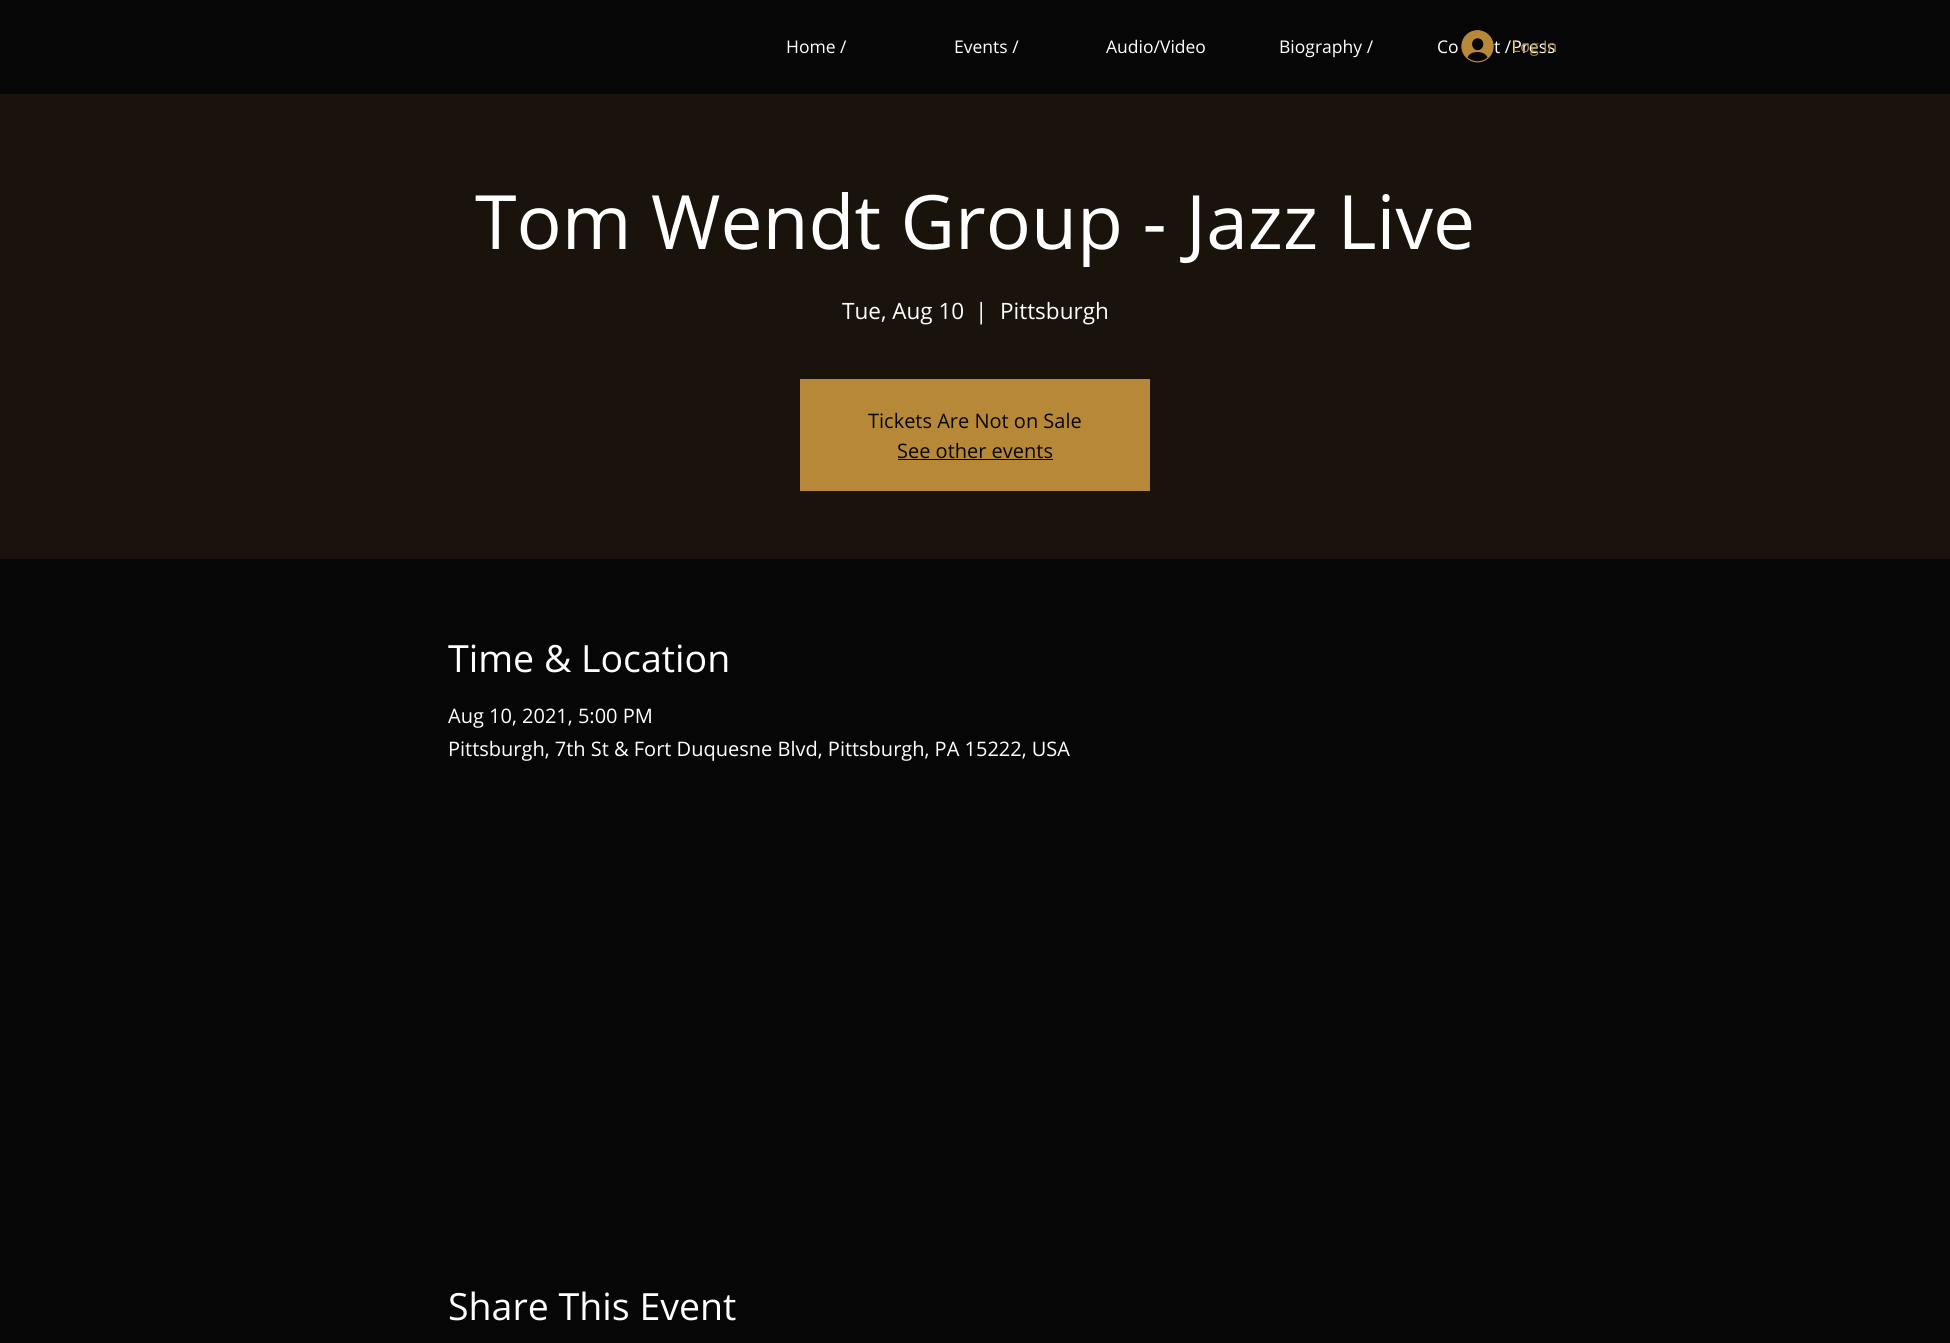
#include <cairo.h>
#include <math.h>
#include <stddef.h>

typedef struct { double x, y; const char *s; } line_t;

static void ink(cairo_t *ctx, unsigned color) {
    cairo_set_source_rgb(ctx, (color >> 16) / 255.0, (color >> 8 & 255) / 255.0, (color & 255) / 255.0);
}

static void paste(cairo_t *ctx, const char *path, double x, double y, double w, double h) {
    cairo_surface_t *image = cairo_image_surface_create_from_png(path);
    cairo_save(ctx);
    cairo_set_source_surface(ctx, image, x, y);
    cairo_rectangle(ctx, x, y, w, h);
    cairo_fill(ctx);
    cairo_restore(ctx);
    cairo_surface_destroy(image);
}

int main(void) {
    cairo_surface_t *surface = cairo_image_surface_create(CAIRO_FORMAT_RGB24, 1950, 1343);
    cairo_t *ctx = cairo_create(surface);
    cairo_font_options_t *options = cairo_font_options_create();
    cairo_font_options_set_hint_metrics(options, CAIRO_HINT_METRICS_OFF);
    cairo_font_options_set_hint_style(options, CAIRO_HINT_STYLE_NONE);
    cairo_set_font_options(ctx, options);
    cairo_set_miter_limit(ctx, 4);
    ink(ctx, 0x070606);
    cairo_paint(ctx);
    cairo_select_font_face(ctx, "Open Sans", CAIRO_FONT_SLANT_NORMAL, CAIRO_FONT_WEIGHT_NORMAL);
    cairo_set_font_size(ctx, 17.5);
    ink(ctx, 0xFFFFFF);
    {
        static const line_t items[] = {
            {786, 53, "Home /"},
            {954, 53, "Events /"},
            {1106, 53, "Audio/Video"},
            {1279, 53, "Biography /"},
            {1437, 53, "Co"},
            {1494, 53, "t /Press"},
        };
        for (size_t i = 0; i < sizeof items / sizeof *items; i++) {
            cairo_move_to(ctx, items[i].x, items[i].y);
            cairo_show_text(ctx, items[i].s);
        }
    }
    paste(ctx, "media/1.png", 1461, 30, 33, 33);
    cairo_set_font_size(ctx, 16);
    ink(ctx, 0xB78837);
    cairo_move_to(ctx, 1512, 52);
    cairo_show_text(ctx, "Log In");
    ink(ctx, 0x19130B);
    cairo_rectangle(ctx, 0, 94, 1950, 465);
    cairo_fill(ctx);
    cairo_set_font_size(ctx, 75);
    ink(ctx, 0xFFFFFF);
    cairo_move_to(ctx, 475, 249);
    cairo_show_text(ctx, "Tom Wendt Group - Jazz Live");
    cairo_set_font_size(ctx, 22.5);
    {
        static const line_t items[] = {
            {842, 319, "Tue, Aug 10"},
            {975, 319, "|"},
            {1000, 319, "Pittsburgh"},
        };
        for (size_t i = 0; i < sizeof items / sizeof *items; i++) {
            cairo_move_to(ctx, items[i].x, items[i].y);
            cairo_show_text(ctx, items[i].s);
        }
    }
    ink(ctx, 0xB78837);
    cairo_rectangle(ctx, 800, 379, 350, 112);
    cairo_fill(ctx);
    cairo_set_font_size(ctx, 20);
    ink(ctx, 0x070606);
    cairo_move_to(ctx, 868, 428);
    cairo_show_text(ctx, "Tickets Are Not on Sale");
    cairo_move_to(ctx, 897, 458);
    cairo_show_text(ctx, "See other events");
    cairo_rectangle(ctx, 898, 459, 155, 1);
    cairo_fill(ctx);
    cairo_set_font_size(ctx, 37.5);
    ink(ctx, 0xFFFFFF);
    cairo_move_to(ctx, 448, 672);
    cairo_show_text(ctx, "Time & Location");
    cairo_set_font_size(ctx, 20);
    cairo_move_to(ctx, 448, 723);
    cairo_show_text(ctx, "Aug 10, 2021, 5:00 PM");
    cairo_move_to(ctx, 448, 756);
    cairo_show_text(ctx, "Pittsburgh, 7th St & Fort Duquesne Blvd, Pittsburgh, PA 15222, USA");
    cairo_set_font_size(ctx, 37.5);
    cairo_move_to(ctx, 448, 1320);
    cairo_show_text(ctx, "Share This Event");
    cairo_surface_write_to_png(surface, "image.png");
    cairo_font_options_destroy(options);
    cairo_destroy(ctx);
    cairo_surface_destroy(surface);
    return 0;
}
